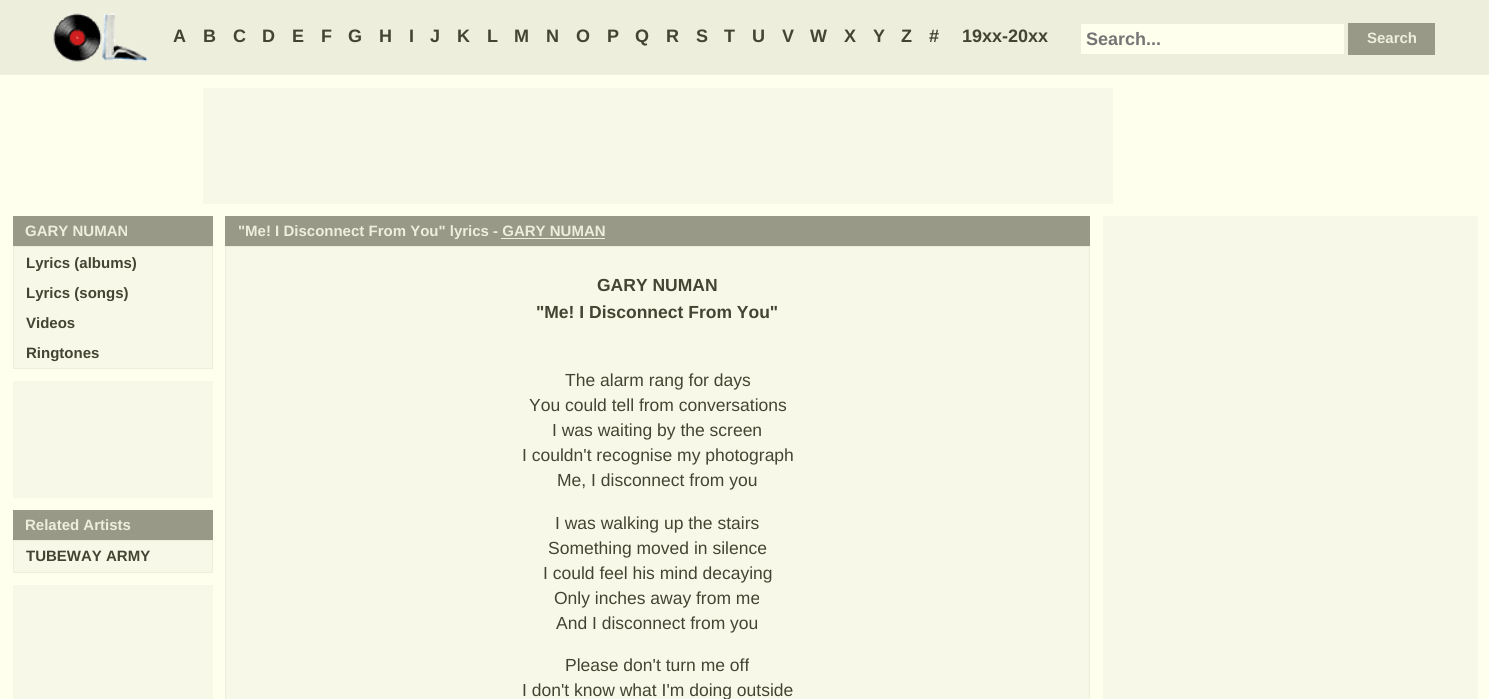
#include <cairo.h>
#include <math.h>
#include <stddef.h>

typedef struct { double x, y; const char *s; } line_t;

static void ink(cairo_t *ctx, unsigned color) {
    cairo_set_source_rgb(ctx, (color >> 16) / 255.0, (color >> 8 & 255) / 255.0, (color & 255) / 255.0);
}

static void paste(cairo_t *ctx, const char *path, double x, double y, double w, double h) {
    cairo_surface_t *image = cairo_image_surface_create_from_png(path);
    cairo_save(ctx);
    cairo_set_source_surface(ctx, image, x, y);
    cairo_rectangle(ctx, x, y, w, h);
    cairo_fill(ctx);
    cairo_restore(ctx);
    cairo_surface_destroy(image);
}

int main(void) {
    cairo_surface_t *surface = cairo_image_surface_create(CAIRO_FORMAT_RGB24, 1489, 699);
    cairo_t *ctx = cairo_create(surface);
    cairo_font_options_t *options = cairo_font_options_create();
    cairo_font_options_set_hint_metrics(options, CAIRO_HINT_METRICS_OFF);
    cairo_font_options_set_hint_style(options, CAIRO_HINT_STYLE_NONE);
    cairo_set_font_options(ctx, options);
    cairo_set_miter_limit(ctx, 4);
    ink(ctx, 0xFFFFEE);
    cairo_paint(ctx);
    ink(ctx, 0xEEEEDD);
    cairo_rectangle(ctx, 0, 0, 1489, 75);
    cairo_fill(ctx);
    paste(ctx, "media/1.png", 53, 13, 95, 49);
    cairo_select_font_face(ctx, "Liberation Sans", CAIRO_FONT_SLANT_NORMAL, CAIRO_FONT_WEIGHT_BOLD);
    cairo_set_font_size(ctx, 18);
    ink(ctx, 0x444433);
    {
        static const line_t items[] = {
            {173, 42, "A"},
            {203, 42, "B"},
            {233, 42, "C"},
            {262, 42, "D"},
            {292, 42, "E"},
            {321, 42, "F"},
            {348, 42, "G"},
            {379, 42, "H"},
            {409, 42, "I"},
            {430, 42, "J"},
            {457, 42, "K"},
            {487, 42, "L"},
            {514, 42, "M"},
            {546, 42, "N"},
            {576, 42, "O"},
            {607, 42, "P"},
            {635, 42, "Q"},
            {666, 42, "R"},
            {696, 42, "S"},
            {724, 42, "T"},
            {752, 42, "U"},
            {782, 42, "V"},
            {810, 42, "W"},
            {844, 42, "X"},
            {873, 42, "Y"},
            {901, 42, "Z"},
            {929, 42, "#"},
            {962, 42, "19xx-20xx"},
        };
        for (size_t i = 0; i < sizeof items / sizeof *items; i++) {
            cairo_move_to(ctx, items[i].x, items[i].y);
            cairo_show_text(ctx, items[i].s);
        }
    }
    ink(ctx, 0xFFFFEE);
    cairo_rectangle(ctx, 1081, 24, 263, 30);
    cairo_fill(ctx);
    ink(ctx, 0x757575);
    cairo_move_to(ctx, 1086, 45);
    cairo_show_text(ctx, "Search...");
    ink(ctx, 0x999988);
    cairo_rectangle(ctx, 1348, 23, 87, 32);
    cairo_fill(ctx);
    cairo_set_font_size(ctx, 15);
    ink(ctx, 0xEEEEDD);
    cairo_move_to(ctx, 1367, 43);
    cairo_show_text(ctx, "Search");
    ink(ctx, 0xF8F8E8);
    cairo_rectangle(ctx, 203, 88, 910, 116);
    cairo_fill(ctx);
    ink(ctx, 0x999988);
    cairo_rectangle(ctx, 13, 216, 200, 30);
    cairo_fill(ctx);
    ink(ctx, 0xEEEEDD);
    cairo_move_to(ctx, 25, 236);
    cairo_show_text(ctx, "GARY NUMAN");
    ink(ctx, 0xF8F8E8);
    cairo_rectangle(ctx, 13.5, 246.5, 199, 122);
    cairo_fill_preserve(ctx);
    ink(ctx, 0xEEEEDD);
    cairo_set_line_width(ctx, 1);
    cairo_stroke(ctx);
    cairo_save(ctx);
    cairo_rectangle(ctx, 26, 254, 112, 17);
    cairo_clip(ctx);
    ink(ctx, 0x444433);
    cairo_move_to(ctx, 26, 268);
    cairo_show_text(ctx, "Lyrics (albums)");
    cairo_restore(ctx);
    cairo_save(ctx);
    cairo_rectangle(ctx, 26, 284, 103, 17);
    cairo_clip(ctx);
    ink(ctx, 0x444433);
    cairo_move_to(ctx, 26, 298);
    cairo_show_text(ctx, "Lyrics (songs)");
    cairo_restore(ctx);
    ink(ctx, 0x444433);
    cairo_move_to(ctx, 26, 328);
    cairo_show_text(ctx, "Videos");
    cairo_move_to(ctx, 26, 358);
    cairo_show_text(ctx, "Ringtones");
    ink(ctx, 0xF8F8E8);
    cairo_rectangle(ctx, 13, 381, 200, 117);
    cairo_fill(ctx);
    ink(ctx, 0x999988);
    cairo_rectangle(ctx, 13, 510, 200, 30);
    cairo_fill(ctx);
    ink(ctx, 0xEEEEDD);
    cairo_move_to(ctx, 25, 530);
    cairo_show_text(ctx, "Related Artists");
    ink(ctx, 0xF8F8E8);
    cairo_rectangle(ctx, 13.5, 540.5, 199, 32);
    cairo_fill_preserve(ctx);
    ink(ctx, 0xEEEEDD);
    cairo_stroke(ctx);
    ink(ctx, 0x444433);
    cairo_move_to(ctx, 26, 561);
    cairo_show_text(ctx, "TUBEWAY ARMY");
    ink(ctx, 0xF8F8E8);
    cairo_rectangle(ctx, 13, 585, 200, 114);
    cairo_fill(ctx);
    ink(ctx, 0x999988);
    cairo_rectangle(ctx, 225, 216, 865, 30);
    cairo_fill(ctx);
    ink(ctx, 0xEEEEDD);
    cairo_move_to(ctx, 238, 236);
    cairo_show_text(ctx, "\"Me! I Disconnect From You\" lyrics - GARY NUMAN");
    cairo_rectangle(ctx, 501, 238, 104, 1);
    cairo_fill(ctx);
    ink(ctx, 0xF8F8E8);
    cairo_rectangle(ctx, 225.5, 246.5, 864, 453);
    cairo_fill_preserve(ctx);
    ink(ctx, 0xEEEEDD);
    cairo_stroke(ctx);
    cairo_set_font_size(ctx, 17.5);
    ink(ctx, 0x444433);
    cairo_move_to(ctx, 597, 291);
    cairo_show_text(ctx, "GARY NUMAN");
    cairo_move_to(ctx, 536, 318);
    cairo_show_text(ctx, "\"Me! I Disconnect From You\"");
    cairo_select_font_face(ctx, "Liberation Sans", CAIRO_FONT_SLANT_NORMAL, CAIRO_FONT_WEIGHT_NORMAL);
    {
        static const line_t items[] = {
            {565, 386, "The alarm rang for days"},
            {529, 411, "You could tell from conversations"},
            {552, 436, "I was waiting by the screen"},
            {522, 461, "I couldn't recognise my photograph"},
            {557, 486, "Me, I disconnect from you"},
            {555, 529, "I was walking up the stairs"},
            {548, 554, "Something moved in silence"},
            {543, 579, "I could feel his mind decaying"},
            {554, 604, "Only inches away from me"},
            {556, 629, "And I disconnect from you"},
            {565, 671, "Please don't turn me off"},
            {522, 696, "I don't know what I'm doing outside"},
        };
        for (size_t i = 0; i < sizeof items / sizeof *items; i++) {
            cairo_move_to(ctx, items[i].x, items[i].y);
            cairo_show_text(ctx, items[i].s);
        }
    }
    ink(ctx, 0xF8F8E8);
    cairo_rectangle(ctx, 1103, 216, 375, 483);
    cairo_fill(ctx);
    cairo_surface_write_to_png(surface, "image.png");
    cairo_font_options_destroy(options);
    cairo_destroy(ctx);
    cairo_surface_destroy(surface);
    return 0;
}
